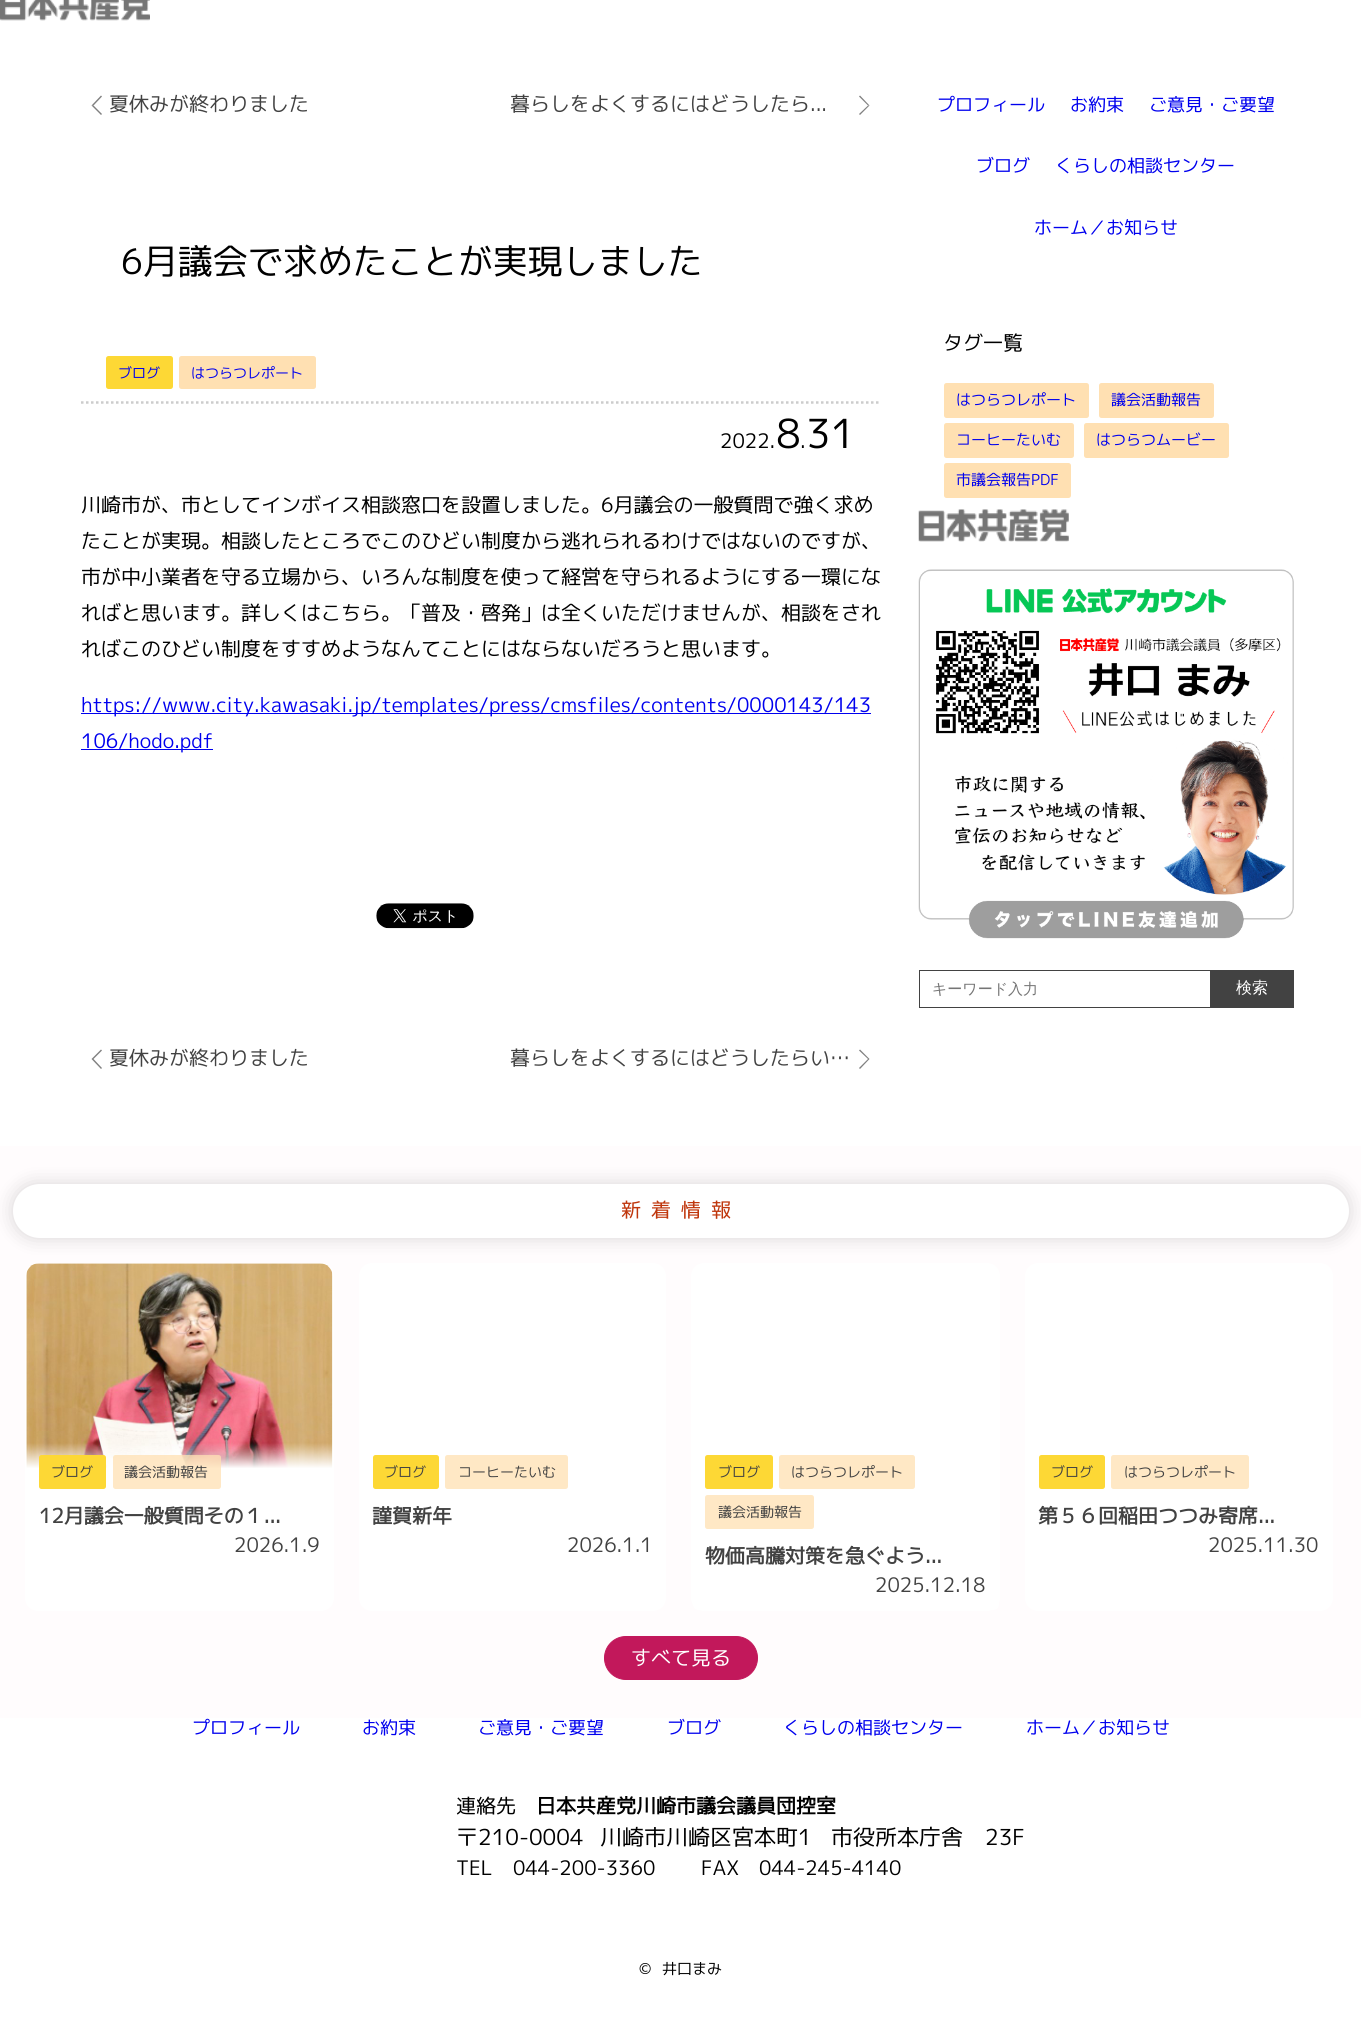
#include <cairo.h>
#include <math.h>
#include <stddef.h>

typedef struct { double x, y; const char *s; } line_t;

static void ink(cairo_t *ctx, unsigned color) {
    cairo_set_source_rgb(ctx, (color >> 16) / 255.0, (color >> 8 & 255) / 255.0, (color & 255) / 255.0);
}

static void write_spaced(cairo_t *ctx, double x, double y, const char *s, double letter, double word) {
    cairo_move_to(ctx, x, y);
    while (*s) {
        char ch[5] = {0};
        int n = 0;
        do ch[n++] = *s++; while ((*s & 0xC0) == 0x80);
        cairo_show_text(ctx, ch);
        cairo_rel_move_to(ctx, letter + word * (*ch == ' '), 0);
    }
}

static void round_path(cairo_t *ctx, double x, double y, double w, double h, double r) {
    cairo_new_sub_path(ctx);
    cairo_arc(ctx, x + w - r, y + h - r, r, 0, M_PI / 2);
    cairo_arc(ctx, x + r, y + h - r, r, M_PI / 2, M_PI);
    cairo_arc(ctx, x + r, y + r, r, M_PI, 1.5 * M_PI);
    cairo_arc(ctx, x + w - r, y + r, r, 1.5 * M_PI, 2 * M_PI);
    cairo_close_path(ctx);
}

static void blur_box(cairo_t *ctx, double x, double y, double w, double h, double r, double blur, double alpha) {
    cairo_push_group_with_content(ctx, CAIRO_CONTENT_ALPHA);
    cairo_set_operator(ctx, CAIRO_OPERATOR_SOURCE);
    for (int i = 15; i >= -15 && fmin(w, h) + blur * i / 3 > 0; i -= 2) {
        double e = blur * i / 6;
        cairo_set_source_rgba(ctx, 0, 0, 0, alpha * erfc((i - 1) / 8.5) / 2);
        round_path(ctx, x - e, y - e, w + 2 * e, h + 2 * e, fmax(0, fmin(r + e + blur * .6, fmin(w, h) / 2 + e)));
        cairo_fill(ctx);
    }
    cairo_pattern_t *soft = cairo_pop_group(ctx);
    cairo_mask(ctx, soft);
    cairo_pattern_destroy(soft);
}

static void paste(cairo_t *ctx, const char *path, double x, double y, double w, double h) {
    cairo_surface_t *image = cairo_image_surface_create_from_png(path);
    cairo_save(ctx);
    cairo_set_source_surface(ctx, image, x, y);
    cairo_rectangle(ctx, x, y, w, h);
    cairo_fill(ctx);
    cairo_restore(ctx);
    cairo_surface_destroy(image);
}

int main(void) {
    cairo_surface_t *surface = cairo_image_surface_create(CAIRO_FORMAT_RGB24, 1361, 2017);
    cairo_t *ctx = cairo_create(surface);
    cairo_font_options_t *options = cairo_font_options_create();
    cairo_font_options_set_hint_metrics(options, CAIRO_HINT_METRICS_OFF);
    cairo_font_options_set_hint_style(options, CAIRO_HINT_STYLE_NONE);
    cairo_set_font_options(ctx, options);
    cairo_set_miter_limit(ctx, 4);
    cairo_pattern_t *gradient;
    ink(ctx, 0xFFFFFF);
    cairo_paint(ctx);
    paste(ctx, "media/1.png", 0, 0, 150, 21);
    ink(ctx, 0x808080);
    cairo_new_path(ctx);
    cairo_move_to(ctx, 101, 115);
    cairo_line_to(ctx, 91.5, 105.5);
    cairo_line_to(ctx, 93.5, 105.5);
    cairo_line_to(ctx, 102, 114);
    cairo_close_path(ctx);
    cairo_fill(ctx);
    cairo_set_source_rgba(ctx, 0, 0, 0, 0.5);
    cairo_new_path(ctx);
    cairo_move_to(ctx, 91.5, 105.5);
    cairo_line_to(ctx, 101, 95.5);
    cairo_line_to(ctx, 102, 96.5);
    cairo_line_to(ctx, 93.5, 105.5);
    cairo_close_path(ctx);
    cairo_fill(ctx);
    cairo_select_font_face(ctx, "M PLUS 1p", CAIRO_FONT_SLANT_NORMAL, CAIRO_FONT_WEIGHT_NORMAL);
    cairo_set_font_size(ctx, 20);
    ink(ctx, 0x424242);
    cairo_move_to(ctx, 109, 111);
    cairo_show_text(ctx, "夏休みが終わりました");
    cairo_move_to(ctx, 510, 111);
    cairo_show_text(ctx, "暮らしをよくするにはどうしたら...");
    ink(ctx, 0x808080);
    cairo_new_path(ctx);
    cairo_move_to(ctx, 860, 95.5);
    cairo_line_to(ctx, 869.5, 105.5);
    cairo_line_to(ctx, 868, 105.5);
    cairo_line_to(ctx, 859, 96.5);
    cairo_close_path(ctx);
    cairo_fill(ctx);
    cairo_new_path(ctx);
    cairo_move_to(ctx, 869.5, 105.5);
    cairo_line_to(ctx, 860, 115);
    cairo_line_to(ctx, 859, 114);
    cairo_line_to(ctx, 868, 105.5);
    cairo_close_path(ctx);
    cairo_fill(ctx);
    cairo_set_font_size(ctx, 35);
    ink(ctx, 0x000000);
    cairo_move_to(ctx, 121, 274);
    cairo_show_text(ctx, "6月議会で求めたことが実現しました");
    cairo_new_path(ctx);
    cairo_move_to(ctx, 81, 402.5);
    cairo_line_to(ctx, 881, 402.5);
    ink(ctx, 0xCCCCCC);
    cairo_set_line_width(ctx, 2.5);
    cairo_set_dash(ctx, (double[]){2.5, 2.5}, 2, 0);
    cairo_stroke(ctx);
    ink(ctx, 0xFDD835);
    round_path(ctx, 106, 356, 67, 33, 2.5);
    cairo_fill(ctx);
    cairo_set_font_size(ctx, 14);
    ink(ctx, 0x0000EE);
    cairo_move_to(ctx, 118, 378);
    cairo_show_text(ctx, "ブログ");
    ink(ctx, 0xFFE0B2);
    round_path(ctx, 179, 356, 137, 33, 2.5);
    cairo_fill(ctx);
    ink(ctx, 0x0000EE);
    cairo_move_to(ctx, 191, 378);
    cairo_show_text(ctx, "はつらつレポート");
    cairo_set_font_size(ctx, 20);
    ink(ctx, 0x000000);
    cairo_move_to(ctx, 720, 448);
    cairo_show_text(ctx, "2022.");
    cairo_set_font_size(ctx, 40);
    cairo_move_to(ctx, 776, 448);
    cairo_show_text(ctx, "8");
    cairo_set_font_size(ctx, 20);
    cairo_move_to(ctx, 800, 448);
    cairo_show_text(ctx, ".");
    cairo_set_font_size(ctx, 40);
    cairo_move_to(ctx, 806, 448);
    cairo_show_text(ctx, "31");
    cairo_set_font_size(ctx, 20);
    {
        static const line_t items[] = {
            {81, 512, "川崎市が、市としてインボイス相談窓口を設置しました。6月議会の一般質問で強く求め"},
            {81, 548, "たことが実現。相談したところでこのひどい制度から逃れられるわけではないのですが、"},
            {81, 584, "市が中小業者を守る立場から、いろんな制度を使って経営を守られるようにする一環にな"},
            {81, 620, "ればと思います。詳しくはこちら。「普及・啓発」は全くいただけませんが、相談をされ"},
            {81, 656, "ればこのひどい制度をすすめようなんてことにはならないだろうと思います。"},
        };
        for (size_t i = 0; i < sizeof items / sizeof *items; i++) {
            cairo_move_to(ctx, items[i].x, items[i].y);
            cairo_show_text(ctx, items[i].s);
        }
    }
    ink(ctx, 0x0000EE);
    cairo_rectangle(ctx, 81, 713, 790, 1);
    cairo_fill(ctx);
    cairo_move_to(ctx, 81, 712);
    cairo_show_text(ctx, "https://www.city.kawasaki.jp/templates/press/cmsfiles/contents/0000143/143");
    cairo_rectangle(ctx, 81, 749, 132, 1);
    cairo_fill(ctx);
    cairo_move_to(ctx, 81, 748);
    cairo_show_text(ctx, "106/hodo.pdf");
    paste(ctx, "media/2.png", 376, 903, 98, 26);
    ink(ctx, 0x808080);
    cairo_new_path(ctx);
    cairo_move_to(ctx, 101, 1069);
    cairo_line_to(ctx, 91.5, 1059);
    cairo_line_to(ctx, 93.5, 1059);
    cairo_line_to(ctx, 102, 1068);
    cairo_close_path(ctx);
    cairo_move_to(ctx, 91.5, 1059);
    cairo_line_to(ctx, 101, 1049.5);
    cairo_line_to(ctx, 102, 1050.5);
    cairo_line_to(ctx, 93.5, 1059);
    cairo_close_path(ctx);
    cairo_fill(ctx);
    ink(ctx, 0x424242);
    cairo_move_to(ctx, 109, 1065);
    cairo_show_text(ctx, "夏休みが終わりました");
    cairo_move_to(ctx, 510, 1065);
    cairo_show_text(ctx, "暮らしをよくするにはどうしたらい…");
    ink(ctx, 0x808080);
    cairo_new_path(ctx);
    cairo_move_to(ctx, 860, 1049.5);
    cairo_line_to(ctx, 869.5, 1059);
    cairo_line_to(ctx, 868, 1059);
    cairo_line_to(ctx, 859, 1050.5);
    cairo_close_path(ctx);
    cairo_move_to(ctx, 869.5, 1059);
    cairo_line_to(ctx, 860, 1069);
    cairo_line_to(ctx, 859, 1068);
    cairo_line_to(ctx, 868, 1059);
    cairo_close_path(ctx);
    cairo_fill(ctx);
    cairo_set_font_size(ctx, 18);
    ink(ctx, 0x0000EE);
    {
        static const line_t items[] = {
            {937, 111, "プロフィール"},
            {1070, 111, "お約束"},
            {1149, 111, "ご意見・ご要望"},
            {976, 172, "ブログ"},
            {1055, 172, "くらしの相談センター"},
            {1034, 234, "ホーム／お知らせ"},
        };
        for (size_t i = 0; i < sizeof items / sizeof *items; i++) {
            cairo_move_to(ctx, items[i].x, items[i].y);
            cairo_show_text(ctx, items[i].s);
        }
    }
    cairo_set_font_size(ctx, 20);
    ink(ctx, 0x000000);
    cairo_move_to(ctx, 943, 350);
    cairo_show_text(ctx, "タグ一覧");
    ink(ctx, 0xFFE0B2);
    round_path(ctx, 944, 383, 145, 35, 2.5);
    cairo_fill(ctx);
    cairo_set_font_size(ctx, 15);
    ink(ctx, 0x0000EE);
    cairo_move_to(ctx, 956, 405);
    cairo_show_text(ctx, "はつらつレポート");
    ink(ctx, 0xFFE0B2);
    round_path(ctx, 1099, 383, 115, 35, 2.5);
    cairo_fill(ctx);
    ink(ctx, 0x0000EE);
    cairo_move_to(ctx, 1111, 405);
    cairo_show_text(ctx, "議会活動報告");
    ink(ctx, 0xFFE0B2);
    round_path(ctx, 944, 423, 130, 35, 2.5);
    cairo_fill(ctx);
    ink(ctx, 0x0000EE);
    cairo_move_to(ctx, 956, 445);
    cairo_show_text(ctx, "コーヒーたいむ");
    ink(ctx, 0xFFE0B2);
    round_path(ctx, 1084, 423, 145, 35, 2.5);
    cairo_fill(ctx);
    ink(ctx, 0x0000EE);
    cairo_move_to(ctx, 1096, 445);
    cairo_show_text(ctx, "はつらつムービー");
    ink(ctx, 0xFFE0B2);
    round_path(ctx, 944, 463, 127, 35, 2.5);
    cairo_fill(ctx);
    ink(ctx, 0x0000EE);
    cairo_move_to(ctx, 956, 485);
    cairo_show_text(ctx, "市議会報告PDF");
    paste(ctx, "media/3.png", 918, 509, 151, 33);
    paste(ctx, "media/4.png", 918, 569, 376, 370);
    cairo_rectangle(ctx, 919.5, 970.5, 291, 37);
    ink(ctx, 0x424242);
    cairo_set_line_width(ctx, 1);
    cairo_set_dash(ctx, NULL, 0, 0);
    cairo_stroke(ctx);
    cairo_select_font_face(ctx, "WenQuanYi Zen Hei Medium", CAIRO_FONT_SLANT_NORMAL, CAIRO_FONT_WEIGHT_NORMAL);
    ink(ctx, 0x757575);
    cairo_move_to(ctx, 932, 994);
    cairo_show_text(ctx, "キーワード入力");
    ink(ctx, 0x424242);
    cairo_rectangle(ctx, 1211, 970, 83, 38);
    cairo_fill(ctx);
    cairo_set_font_size(ctx, 16);
    ink(ctx, 0xFFFFFF);
    cairo_move_to(ctx, 1236, 993);
    cairo_show_text(ctx, "検索");
    ink(ctx, 0xFFFCFD);
    cairo_rectangle(ctx, 0, 1146, 1361, 572);
    cairo_fill(ctx);
    ink(ctx, 0x000000);
    blur_box(ctx, 13, 1184, 1336, 54, 27, 9.5, 0.15);
    ink(ctx, 0xFFFFFF);
    round_path(ctx, 13, 1184, 1336, 54, 27);
    cairo_fill(ctx);
    cairo_select_font_face(ctx, "M PLUS 1p", CAIRO_FONT_SLANT_NORMAL, CAIRO_FONT_WEIGHT_NORMAL);
    cairo_set_font_size(ctx, 20);
    ink(ctx, 0xBF360C);
    write_spaced(ctx, 621, 1217, "新着情報", 10, 0);
    ink(ctx, 0xFFFFFF);
    round_path(ctx, 25, 1263, 309, 348, 13);
    cairo_fill(ctx);
    paste(ctx, "media/5.png", 26, 1263, 307, 205);
    gradient = cairo_pattern_create_linear(179, 1443, 179, 1570);
    cairo_pattern_add_color_stop_rgba(gradient, 0, 1, 1, 1, 0);
    cairo_pattern_add_color_stop_rgba(gradient, 0.2, 1, 1, 1, 1);
    cairo_set_source(ctx, gradient);
    cairo_pattern_destroy(gradient);
    cairo_new_path(ctx);
    cairo_move_to(ctx, 26, 1443);
    cairo_line_to(ctx, 333, 1443);
    cairo_line_to(ctx, 333, 1564);
    cairo_curve_to(ctx, 333, 1567.5, 330.5, 1570, 327, 1570);
    cairo_line_to(ctx, 32, 1570);
    cairo_curve_to(ctx, 28.5, 1570, 26, 1567.5, 26, 1564);
    cairo_close_path(ctx);
    cairo_fill(ctx);
    ink(ctx, 0xFDD835);
    round_path(ctx, 39, 1455, 67, 34, 2.5);
    cairo_fill(ctx);
    cairo_set_font_size(ctx, 14);
    ink(ctx, 0x424242);
    cairo_move_to(ctx, 51, 1477);
    cairo_show_text(ctx, "ブログ");
    cairo_set_source_rgba(ctx, 1, 0.878, 0.698, 0.75);
    round_path(ctx, 113, 1455, 108, 34, 2.5);
    cairo_fill(ctx);
    ink(ctx, 0x424242);
    cairo_move_to(ctx, 124, 1477);
    cairo_show_text(ctx, "議会活動報告");
    cairo_select_font_face(ctx, "M PLUS 1p", CAIRO_FONT_SLANT_NORMAL, CAIRO_FONT_WEIGHT_BOLD);
    cairo_set_font_size(ctx, 20);
    cairo_move_to(ctx, 39, 1523);
    cairo_show_text(ctx, "12月議会一般質問その１...");
    cairo_select_font_face(ctx, "M PLUS 1p", CAIRO_FONT_SLANT_NORMAL, CAIRO_FONT_WEIGHT_NORMAL);
    cairo_move_to(ctx, 234, 1552);
    cairo_show_text(ctx, "2026.1.9");
    ink(ctx, 0xFFFFFF);
    round_path(ctx, 359, 1263, 307, 348, 13);
    cairo_fill(ctx);
    ink(ctx, 0xFDD835);
    round_path(ctx, 373, 1455, 66, 34, 2.5);
    cairo_fill(ctx);
    cairo_set_font_size(ctx, 14);
    ink(ctx, 0x424242);
    cairo_move_to(ctx, 384, 1477);
    cairo_show_text(ctx, "ブログ");
    ink(ctx, 0xFFE8C5);
    round_path(ctx, 445, 1455, 123, 34, 2.5);
    cairo_fill(ctx);
    ink(ctx, 0x424242);
    cairo_move_to(ctx, 458, 1477);
    cairo_show_text(ctx, "コーヒーたいむ");
    cairo_select_font_face(ctx, "M PLUS 1p", CAIRO_FONT_SLANT_NORMAL, CAIRO_FONT_WEIGHT_BOLD);
    cairo_set_font_size(ctx, 20);
    cairo_move_to(ctx, 372, 1523);
    cairo_show_text(ctx, "謹賀新年");
    cairo_select_font_face(ctx, "M PLUS 1p", CAIRO_FONT_SLANT_NORMAL, CAIRO_FONT_WEIGHT_NORMAL);
    cairo_move_to(ctx, 567, 1552);
    cairo_show_text(ctx, "2026.1.1");
    ink(ctx, 0xFFFFFF);
    round_path(ctx, 691, 1263, 309, 348, 13);
    cairo_fill(ctx);
    gradient = cairo_pattern_create_linear(846, 1443, 846, 1610);
    cairo_pattern_add_color_stop_rgba(gradient, 0, 1, 1, 1, 0);
    cairo_pattern_add_color_stop_rgba(gradient, 0.2, 1, 1, 1, 1);
    cairo_set_source(ctx, gradient);
    cairo_pattern_destroy(gradient);
    cairo_new_path(ctx);
    cairo_move_to(ctx, 693, 1443);
    cairo_line_to(ctx, 999, 1443);
    cairo_line_to(ctx, 999, 1604);
    cairo_curve_to(ctx, 999, 1607.5, 996.5, 1610, 993, 1610);
    cairo_line_to(ctx, 699, 1610);
    cairo_curve_to(ctx, 695.5, 1610, 693, 1607.5, 693, 1604);
    cairo_close_path(ctx);
    cairo_fill(ctx);
    ink(ctx, 0xFDD835);
    round_path(ctx, 705, 1455, 68, 34, 2.5);
    cairo_fill(ctx);
    cairo_set_font_size(ctx, 14);
    ink(ctx, 0x424242);
    cairo_move_to(ctx, 718, 1477);
    cairo_show_text(ctx, "ブログ");
    ink(ctx, 0xFFE8C5);
    round_path(ctx, 779, 1455, 136, 34, 2.5);
    cairo_fill(ctx);
    ink(ctx, 0x424242);
    cairo_move_to(ctx, 791, 1477);
    cairo_show_text(ctx, "はつらつレポート");
    ink(ctx, 0xFFE8C5);
    round_path(ctx, 705, 1495, 109, 34, 2.5);
    cairo_fill(ctx);
    ink(ctx, 0x424242);
    cairo_move_to(ctx, 718, 1517);
    cairo_show_text(ctx, "議会活動報告");
    cairo_select_font_face(ctx, "M PLUS 1p", CAIRO_FONT_SLANT_NORMAL, CAIRO_FONT_WEIGHT_BOLD);
    cairo_set_font_size(ctx, 20);
    cairo_move_to(ctx, 705, 1563);
    cairo_show_text(ctx, "物価高騰対策を急ぐよう...");
    cairo_select_font_face(ctx, "M PLUS 1p", CAIRO_FONT_SLANT_NORMAL, CAIRO_FONT_WEIGHT_NORMAL);
    cairo_move_to(ctx, 875, 1592);
    cairo_show_text(ctx, "2025.12.18");
    ink(ctx, 0xFFFFFF);
    round_path(ctx, 1025, 1263, 308, 348, 13);
    cairo_fill(ctx);
    ink(ctx, 0xFDD835);
    round_path(ctx, 1039, 1455, 66, 34, 2.5);
    cairo_fill(ctx);
    cairo_set_font_size(ctx, 14);
    ink(ctx, 0x424242);
    cairo_move_to(ctx, 1051, 1477);
    cairo_show_text(ctx, "ブログ");
    ink(ctx, 0xFFE8C5);
    round_path(ctx, 1111, 1455, 138, 34, 2.5);
    cairo_fill(ctx);
    ink(ctx, 0x424242);
    cairo_move_to(ctx, 1124, 1477);
    cairo_show_text(ctx, "はつらつレポート");
    cairo_select_font_face(ctx, "M PLUS 1p", CAIRO_FONT_SLANT_NORMAL, CAIRO_FONT_WEIGHT_BOLD);
    cairo_set_font_size(ctx, 20);
    cairo_move_to(ctx, 1038, 1523);
    cairo_show_text(ctx, "第５６回稲田つつみ寄席...");
    cairo_select_font_face(ctx, "M PLUS 1p", CAIRO_FONT_SLANT_NORMAL, CAIRO_FONT_WEIGHT_NORMAL);
    cairo_move_to(ctx, 1208, 1552);
    cairo_show_text(ctx, "2025.11.30");
    ink(ctx, 0xC2185B);
    round_path(ctx, 604.5, 1636.5, 153, 43, 21.5);
    cairo_fill_preserve(ctx);
    cairo_stroke(ctx);
    ink(ctx, 0xFFFFFF);
    cairo_move_to(ctx, 631, 1665);
    cairo_show_text(ctx, "すべて見る");
    cairo_set_font_size(ctx, 18);
    ink(ctx, 0x0000EE);
    {
        static const line_t items[] = {
            {192, 1734, "プロフィール"},
            {362, 1734, "お約束"},
            {478, 1734, "ご意見・ご要望"},
            {667, 1734, "ブログ"},
            {783, 1734, "くらしの相談センター"},
            {1026, 1734, "ホーム／お知らせ"},
        };
        for (size_t i = 0; i < sizeof items / sizeof *items; i++) {
            cairo_move_to(ctx, items[i].x, items[i].y);
            cairo_show_text(ctx, items[i].s);
        }
    }
    cairo_set_font_size(ctx, 20);
    ink(ctx, 0x000000);
    cairo_move_to(ctx, 456, 1813);
    cairo_show_text(ctx, "連絡先");
    cairo_select_font_face(ctx, "M PLUS 1p", CAIRO_FONT_SLANT_NORMAL, CAIRO_FONT_WEIGHT_BOLD);
    cairo_move_to(ctx, 536, 1813);
    cairo_show_text(ctx, "日本共産党川崎市議会議員団控室");
    cairo_select_font_face(ctx, "M PLUS 1p", CAIRO_FONT_SLANT_NORMAL, CAIRO_FONT_WEIGHT_NORMAL);
    cairo_set_font_size(ctx, 22);
    {
        static const line_t items[] = {
            {456, 1845, "〒210-0004"},
            {600, 1845, "川崎市川崎区宮本町1"},
            {831, 1845, "市役所本庁舎　23F"},
        };
        for (size_t i = 0; i < sizeof items / sizeof *items; i++) {
            cairo_move_to(ctx, items[i].x, items[i].y);
            cairo_show_text(ctx, items[i].s);
        }
    }
    cairo_set_font_size(ctx, 20);
    {
        static const line_t items[] = {
            {456, 1875, "TEL"},
            {513, 1875, "044-200-3360"},
            {701, 1875, "FAX"},
            {759, 1875, "044-245-4140"},
        };
        for (size_t i = 0; i < sizeof items / sizeof *items; i++) {
            cairo_move_to(ctx, items[i].x, items[i].y);
            cairo_show_text(ctx, items[i].s);
        }
    }
    cairo_set_font_size(ctx, 15);
    cairo_move_to(ctx, 639, 1974);
    cairo_show_text(ctx, "©");
    cairo_move_to(ctx, 662, 1974);
    cairo_show_text(ctx, "井口まみ");
    cairo_surface_write_to_png(surface, "image.png");
    cairo_font_options_destroy(options);
    cairo_destroy(ctx);
    cairo_surface_destroy(surface);
    return 0;
}
